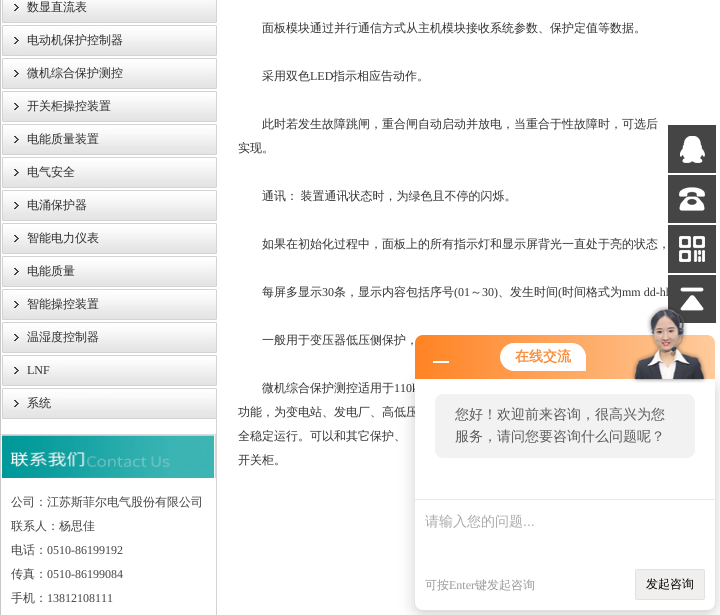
#include <cairo.h>
#include <math.h>
#include <stddef.h>

typedef struct { double x, y; const char *s; } line_t;

static void ink(cairo_t *ctx, unsigned color) {
    cairo_set_source_rgb(ctx, (color >> 16) / 255.0, (color >> 8 & 255) / 255.0, (color & 255) / 255.0);
}

static void write_spaced(cairo_t *ctx, double x, double y, const char *s, double letter, double word) {
    cairo_move_to(ctx, x, y);
    while (*s) {
        char ch[5] = {0};
        int n = 0;
        do ch[n++] = *s++; while ((*s & 0xC0) == 0x80);
        cairo_show_text(ctx, ch);
        cairo_rel_move_to(ctx, letter + word * (*ch == ' '), 0);
    }
}

static void round_path(cairo_t *ctx, double x, double y, double w, double h, double r) {
    cairo_new_sub_path(ctx);
    cairo_arc(ctx, x + w - r, y + h - r, r, 0, M_PI / 2);
    cairo_arc(ctx, x + r, y + h - r, r, M_PI / 2, M_PI);
    cairo_arc(ctx, x + r, y + r, r, M_PI, 1.5 * M_PI);
    cairo_arc(ctx, x + w - r, y + r, r, 1.5 * M_PI, 2 * M_PI);
    cairo_close_path(ctx);
}

static void blur_box(cairo_t *ctx, double x, double y, double w, double h, double r, double blur, double alpha) {
    cairo_push_group_with_content(ctx, CAIRO_CONTENT_ALPHA);
    cairo_set_operator(ctx, CAIRO_OPERATOR_SOURCE);
    for (int i = 15; i >= -15 && fmin(w, h) + blur * i / 3 > 0; i -= 2) {
        double e = blur * i / 6;
        cairo_set_source_rgba(ctx, 0, 0, 0, alpha * erfc((i - 1) / 8.5) / 2);
        round_path(ctx, x - e, y - e, w + 2 * e, h + 2 * e, fmax(0, fmin(r + e + blur * .6, fmin(w, h) / 2 + e)));
        cairo_fill(ctx);
    }
    cairo_pattern_t *soft = cairo_pop_group(ctx);
    cairo_mask(ctx, soft);
    cairo_pattern_destroy(soft);
}

static void paste(cairo_t *ctx, const char *path, double x, double y, double w, double h) {
    cairo_surface_t *image = cairo_image_surface_create_from_png(path);
    cairo_save(ctx);
    cairo_set_source_surface(ctx, image, x, y);
    cairo_rectangle(ctx, x, y, w, h);
    cairo_fill(ctx);
    cairo_restore(ctx);
    cairo_surface_destroy(image);
}

int main(void) {
    cairo_surface_t *surface = cairo_image_surface_create(CAIRO_FORMAT_RGB24, 720, 615);
    cairo_t *ctx = cairo_create(surface);
    cairo_font_options_t *options = cairo_font_options_create();
    cairo_font_options_set_hint_metrics(options, CAIRO_HINT_METRICS_OFF);
    cairo_font_options_set_hint_style(options, CAIRO_HINT_STYLE_NONE);
    cairo_set_font_options(ctx, options);
    cairo_set_miter_limit(ctx, 4);
    cairo_pattern_t *gradient;
    ink(ctx, 0xFFFFFF);
    cairo_paint(ctx);
    ink(ctx, 0xD4D2D3);
    cairo_rectangle(ctx, 216, 419, 1, 196);
    cairo_fill(ctx);
    cairo_rectangle(ctx, 0.5, -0.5, 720, 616);
    ink(ctx, 0xC7C7C7);
    cairo_set_line_width(ctx, 1);
    cairo_stroke(ctx);
    paste(ctx, "media/1.png", 2, 0, 215, 23);
    cairo_select_font_face(ctx, "WenQuanYi Zen Hei Medium", CAIRO_FONT_SLANT_NORMAL, CAIRO_FONT_WEIGHT_NORMAL);
    cairo_set_font_size(ctx, 12);
    ink(ctx, 0x2D2D2D);
    cairo_move_to(ctx, 27, 11);
    cairo_show_text(ctx, "数显直流表");
    paste(ctx, "media/2.png", 2, 25, 215, 31);
    cairo_move_to(ctx, 27, 44);
    cairo_show_text(ctx, "电动机保护控制器");
    paste(ctx, "media/2.png", 2, 58, 215, 31);
    cairo_move_to(ctx, 27, 77);
    cairo_show_text(ctx, "微机综合保护测控");
    paste(ctx, "media/2.png", 2, 91, 215, 31);
    cairo_move_to(ctx, 27, 110);
    cairo_show_text(ctx, "开关柜操控装置");
    paste(ctx, "media/2.png", 2, 124, 215, 31);
    cairo_move_to(ctx, 27, 143);
    cairo_show_text(ctx, "电能质量装置");
    paste(ctx, "media/2.png", 2, 157, 215, 31);
    cairo_move_to(ctx, 27, 176);
    cairo_show_text(ctx, "电气安全");
    paste(ctx, "media/2.png", 2, 190, 215, 31);
    cairo_move_to(ctx, 27, 209);
    cairo_show_text(ctx, "电涌保护器");
    paste(ctx, "media/2.png", 2, 223, 215, 31);
    cairo_move_to(ctx, 27, 242);
    cairo_show_text(ctx, "智能电力仪表");
    paste(ctx, "media/2.png", 2, 256, 215, 31);
    cairo_move_to(ctx, 27, 275);
    cairo_show_text(ctx, "电能质量");
    paste(ctx, "media/2.png", 2, 289, 215, 31);
    cairo_move_to(ctx, 27, 308);
    cairo_show_text(ctx, "智能操控装置");
    paste(ctx, "media/2.png", 2, 322, 215, 31);
    cairo_move_to(ctx, 27, 341);
    cairo_show_text(ctx, "温湿度控制器");
    paste(ctx, "media/2.png", 2, 355, 215, 31);
    cairo_select_font_face(ctx, "Liberation Serif", CAIRO_FONT_SLANT_NORMAL, CAIRO_FONT_WEIGHT_NORMAL);
    cairo_move_to(ctx, 27, 374);
    cairo_show_text(ctx, "LNF");
    paste(ctx, "media/2.png", 2, 388, 215, 31);
    cairo_select_font_face(ctx, "WenQuanYi Zen Hei Medium", CAIRO_FONT_SLANT_NORMAL, CAIRO_FONT_WEIGHT_NORMAL);
    cairo_move_to(ctx, 27, 407);
    cairo_show_text(ctx, "系统");
    paste(ctx, "media/3.png", 1, 434, 215, 44);
    ink(ctx, 0x444444);
    {
        static const line_t items[] = {
            {11, 506, "公司：江苏斯菲尔电气股份有限公司"},
            {11, 530, "联系人：杨思佳"},
            {11, 554, "电话："},
        };
        for (size_t i = 0; i < sizeof items / sizeof *items; i++) {
            cairo_move_to(ctx, items[i].x, items[i].y);
            cairo_show_text(ctx, items[i].s);
        }
    }
    cairo_select_font_face(ctx, "Liberation Serif", CAIRO_FONT_SLANT_NORMAL, CAIRO_FONT_WEIGHT_NORMAL);
    cairo_move_to(ctx, 47, 554);
    cairo_show_text(ctx, "0510-86199192");
    cairo_select_font_face(ctx, "WenQuanYi Zen Hei Medium", CAIRO_FONT_SLANT_NORMAL, CAIRO_FONT_WEIGHT_NORMAL);
    cairo_move_to(ctx, 11, 578);
    cairo_show_text(ctx, "传真：");
    cairo_select_font_face(ctx, "Liberation Serif", CAIRO_FONT_SLANT_NORMAL, CAIRO_FONT_WEIGHT_NORMAL);
    cairo_move_to(ctx, 47, 578);
    cairo_show_text(ctx, "0510-86199084");
    cairo_select_font_face(ctx, "WenQuanYi Zen Hei Medium", CAIRO_FONT_SLANT_NORMAL, CAIRO_FONT_WEIGHT_NORMAL);
    cairo_move_to(ctx, 11, 602);
    cairo_show_text(ctx, "手机：");
    cairo_select_font_face(ctx, "Liberation Serif", CAIRO_FONT_SLANT_NORMAL, CAIRO_FONT_WEIGHT_NORMAL);
    cairo_move_to(ctx, 47, 602);
    cairo_show_text(ctx, "13812108111");
    cairo_select_font_face(ctx, "WenQuanYi Zen Hei Medium", CAIRO_FONT_SLANT_NORMAL, CAIRO_FONT_WEIGHT_NORMAL);
    ink(ctx, 0x333333);
    cairo_move_to(ctx, 262, 32);
    cairo_show_text(ctx, "面板模块通过并行通信方式从主机模块接收系统参数、保护定值等数据。");
    cairo_move_to(ctx, 262, 80);
    cairo_show_text(ctx, "采用双色");
    cairo_select_font_face(ctx, "Liberation Serif", CAIRO_FONT_SLANT_NORMAL, CAIRO_FONT_WEIGHT_NORMAL);
    cairo_move_to(ctx, 310, 80);
    cairo_show_text(ctx, "LED");
    cairo_select_font_face(ctx, "WenQuanYi Zen Hei Medium", CAIRO_FONT_SLANT_NORMAL, CAIRO_FONT_WEIGHT_NORMAL);
    {
        static const line_t items[] = {
            {333, 80, "指示相应告动作。"},
            {262, 128, "此时若发生故障跳闸，重合闸自动启动并放电，当重合于性故障时，可选后"},
            {238, 152, "实现。"},
        };
        for (size_t i = 0; i < sizeof items / sizeof *items; i++) {
            cairo_move_to(ctx, items[i].x, items[i].y);
            cairo_show_text(ctx, items[i].s);
        }
    }
    write_spaced(ctx, 262, 200, "通讯： 装置通讯状态时，为绿色且不停的闪烁。", 0, -1);
    cairo_move_to(ctx, 262, 248);
    cairo_show_text(ctx, "如果在初始化过程中，面板上的所有指示灯和显示屏背光一直处于亮的状态，");
    cairo_move_to(ctx, 262, 296);
    cairo_show_text(ctx, "每屏多显示");
    cairo_select_font_face(ctx, "Liberation Serif", CAIRO_FONT_SLANT_NORMAL, CAIRO_FONT_WEIGHT_NORMAL);
    cairo_move_to(ctx, 322, 296);
    cairo_show_text(ctx, "30");
    cairo_select_font_face(ctx, "WenQuanYi Zen Hei Medium", CAIRO_FONT_SLANT_NORMAL, CAIRO_FONT_WEIGHT_NORMAL);
    cairo_move_to(ctx, 334, 296);
    cairo_show_text(ctx, "条，显示内容包括序号");
    cairo_select_font_face(ctx, "Liberation Serif", CAIRO_FONT_SLANT_NORMAL, CAIRO_FONT_WEIGHT_NORMAL);
    cairo_move_to(ctx, 454, 296);
    cairo_show_text(ctx, "(01");
    cairo_select_font_face(ctx, "WenQuanYi Zen Hei Medium", CAIRO_FONT_SLANT_NORMAL, CAIRO_FONT_WEIGHT_NORMAL);
    cairo_move_to(ctx, 470, 296);
    cairo_show_text(ctx, "～");
    cairo_select_font_face(ctx, "Liberation Serif", CAIRO_FONT_SLANT_NORMAL, CAIRO_FONT_WEIGHT_NORMAL);
    cairo_move_to(ctx, 482, 296);
    cairo_show_text(ctx, "30)");
    cairo_select_font_face(ctx, "WenQuanYi Zen Hei Medium", CAIRO_FONT_SLANT_NORMAL, CAIRO_FONT_WEIGHT_NORMAL);
    cairo_move_to(ctx, 498, 296);
    cairo_show_text(ctx, "、发生时间");
    cairo_select_font_face(ctx, "Liberation Serif", CAIRO_FONT_SLANT_NORMAL, CAIRO_FONT_WEIGHT_NORMAL);
    cairo_move_to(ctx, 558, 296);
    cairo_show_text(ctx, "(");
    cairo_select_font_face(ctx, "WenQuanYi Zen Hei Medium", CAIRO_FONT_SLANT_NORMAL, CAIRO_FONT_WEIGHT_NORMAL);
    cairo_move_to(ctx, 562, 296);
    cairo_show_text(ctx, "时间格式为");
    cairo_select_font_face(ctx, "Liberation Serif", CAIRO_FONT_SLANT_NORMAL, CAIRO_FONT_WEIGHT_NORMAL);
    cairo_move_to(ctx, 622, 296);
    cairo_show_text(ctx, "mm dd-hh");
    cairo_select_font_face(ctx, "WenQuanYi Zen Hei Medium", CAIRO_FONT_SLANT_NORMAL, CAIRO_FONT_WEIGHT_NORMAL);
    cairo_move_to(ctx, 262, 344);
    cairo_show_text(ctx, "一般用于变压器低压侧保护，");
    cairo_move_to(ctx, 262, 392);
    cairo_show_text(ctx, "微机综合保护测控适用于");
    cairo_select_font_face(ctx, "Liberation Serif", CAIRO_FONT_SLANT_NORMAL, CAIRO_FONT_WEIGHT_NORMAL);
    cairo_move_to(ctx, 394, 392);
    cairo_show_text(ctx, "110k");
    cairo_select_font_face(ctx, "WenQuanYi Zen Hei Medium", CAIRO_FONT_SLANT_NORMAL, CAIRO_FONT_WEIGHT_NORMAL);
    {
        static const line_t items[] = {
            {238, 416, "功能，为变电站、发电厂、高低压"},
            {238, 440, "全稳定运行。可以和其它保护、"},
            {238, 464, "开关柜。"},
        };
        for (size_t i = 0; i < sizeof items / sizeof *items; i++) {
            cairo_move_to(ctx, items[i].x, items[i].y);
            cairo_show_text(ctx, items[i].s);
        }
    }
    ink(ctx, 0x454545);
    cairo_rectangle(ctx, 668, 125, 48, 48);
    cairo_fill(ctx);
    paste(ctx, "media/4.png", 680, 136, 25, 27);
    cairo_rectangle(ctx, 668, 175, 48, 48);
    cairo_fill(ctx);
    paste(ctx, "media/5.png", 679, 187, 26, 24);
    cairo_rectangle(ctx, 668, 225, 48, 48);
    cairo_fill(ctx);
    paste(ctx, "media/6.png", 679, 236, 26, 26);
    cairo_rectangle(ctx, 668, 275, 48, 48);
    cairo_fill(ctx);
    paste(ctx, "media/7.png", 680, 287, 24, 24);
    ink(ctx, 0x000000);
    blur_box(ctx, 415, 383, 300, 231, 8, 8, 0.2);
    gradient = cairo_pattern_create_linear(415, 357, 715, 357);
    cairo_pattern_add_color_stop_rgba(gradient, 0, 1, 0.514, 0.141, 1);
    cairo_pattern_add_color_stop_rgba(gradient, 1, 0.996, 0.796, 0.612, 1);
    cairo_set_source(ctx, gradient);
    cairo_pattern_destroy(gradient);
    cairo_new_path(ctx);
    cairo_move_to(ctx, 423, 335);
    cairo_line_to(ctx, 707, 335);
    cairo_curve_to(ctx, 711.5, 335, 715, 338.5, 715, 343);
    cairo_line_to(ctx, 715, 379);
    cairo_line_to(ctx, 415, 379);
    cairo_line_to(ctx, 415, 343);
    cairo_curve_to(ctx, 415, 338.5, 418.5, 335, 423, 335);
    cairo_close_path(ctx);
    cairo_fill(ctx);
    ink(ctx, 0xFFFFFF);
    cairo_rectangle(ctx, 433, 361, 16, 2);
    cairo_fill(ctx);
    cairo_new_path(ctx);
    cairo_move_to(ctx, 514, 343);
    cairo_line_to(ctx, 572, 343);
    cairo_curve_to(ctx, 579.5, 343, 586, 349.5, 586, 357);
    cairo_line_to(ctx, 586, 371);
    cairo_line_to(ctx, 514, 371);
    cairo_curve_to(ctx, 506.5, 371, 500, 364.5, 500, 357);
    cairo_curve_to(ctx, 500, 349.5, 506.5, 343, 514, 343);
    cairo_close_path(ctx);
    cairo_fill(ctx);
    cairo_select_font_face(ctx, "WenQuanYi Zen Hei", CAIRO_FONT_SLANT_NORMAL, CAIRO_FONT_WEIGHT_BOLD);
    cairo_set_font_size(ctx, 14);
    ink(ctx, 0xFB8B36);
    cairo_move_to(ctx, 515, 361);
    cairo_show_text(ctx, "在线交流");
    ink(ctx, 0xFFFFFF);
    cairo_new_path(ctx);
    cairo_move_to(ctx, 415, 379);
    cairo_line_to(ctx, 715, 379);
    cairo_line_to(ctx, 715, 602);
    cairo_curve_to(ctx, 715, 606.5, 711.5, 610, 707, 610);
    cairo_line_to(ctx, 423, 610);
    cairo_curve_to(ctx, 418.5, 610, 415, 606.5, 415, 602);
    cairo_close_path(ctx);
    cairo_fill(ctx);
    paste(ctx, "media/8.png", 631, 305, 76, 78);
    ink(ctx, 0xF2F2F2);
    round_path(ctx, 435, 394, 260, 64, 8);
    cairo_fill(ctx);
    cairo_select_font_face(ctx, "WenQuanYi Zen Hei Medium", CAIRO_FONT_SLANT_NORMAL, CAIRO_FONT_WEIGHT_NORMAL);
    ink(ctx, 0x5C5C5C);
    cairo_move_to(ctx, 455, 419);
    cairo_show_text(ctx, "您好！欢迎前来咨询，很高兴为您");
    cairo_move_to(ctx, 455, 441);
    cairo_show_text(ctx, "服务，请问您要咨询什么问题呢？");
    ink(ctx, 0xEAEAEA);
    cairo_rectangle(ctx, 415, 499, 300, 1);
    cairo_fill(ctx);
    ink(ctx, 0xAAAAAA);
    cairo_move_to(ctx, 425, 526);
    cairo_show_text(ctx, "请输入您的问题");
    cairo_select_font_face(ctx, "Liberation Sans", CAIRO_FONT_SLANT_NORMAL, CAIRO_FONT_WEIGHT_NORMAL);
    cairo_move_to(ctx, 523, 526);
    cairo_show_text(ctx, "...");
    cairo_select_font_face(ctx, "WenQuanYi Zen Hei Medium", CAIRO_FONT_SLANT_NORMAL, CAIRO_FONT_WEIGHT_NORMAL);
    cairo_set_font_size(ctx, 12);
    ink(ctx, 0x999999);
    cairo_move_to(ctx, 425, 589);
    cairo_show_text(ctx, "可按");
    cairo_select_font_face(ctx, "Liberation Serif", CAIRO_FONT_SLANT_NORMAL, CAIRO_FONT_WEIGHT_NORMAL);
    cairo_move_to(ctx, 449, 589);
    cairo_show_text(ctx, "Enter");
    cairo_select_font_face(ctx, "WenQuanYi Zen Hei Medium", CAIRO_FONT_SLANT_NORMAL, CAIRO_FONT_WEIGHT_NORMAL);
    cairo_move_to(ctx, 475, 589);
    cairo_show_text(ctx, "键发起咨询");
    ink(ctx, 0xF0EFED);
    round_path(ctx, 635.5, 569.5, 69, 30, 1.5);
    cairo_fill_preserve(ctx);
    ink(ctx, 0xE2E2E2);
    cairo_stroke(ctx);
    ink(ctx, 0x000000);
    cairo_move_to(ctx, 646, 588);
    cairo_show_text(ctx, "发起咨询");
    cairo_surface_write_to_png(surface, "image.png");
    cairo_font_options_destroy(options);
    cairo_destroy(ctx);
    cairo_surface_destroy(surface);
    return 0;
}
